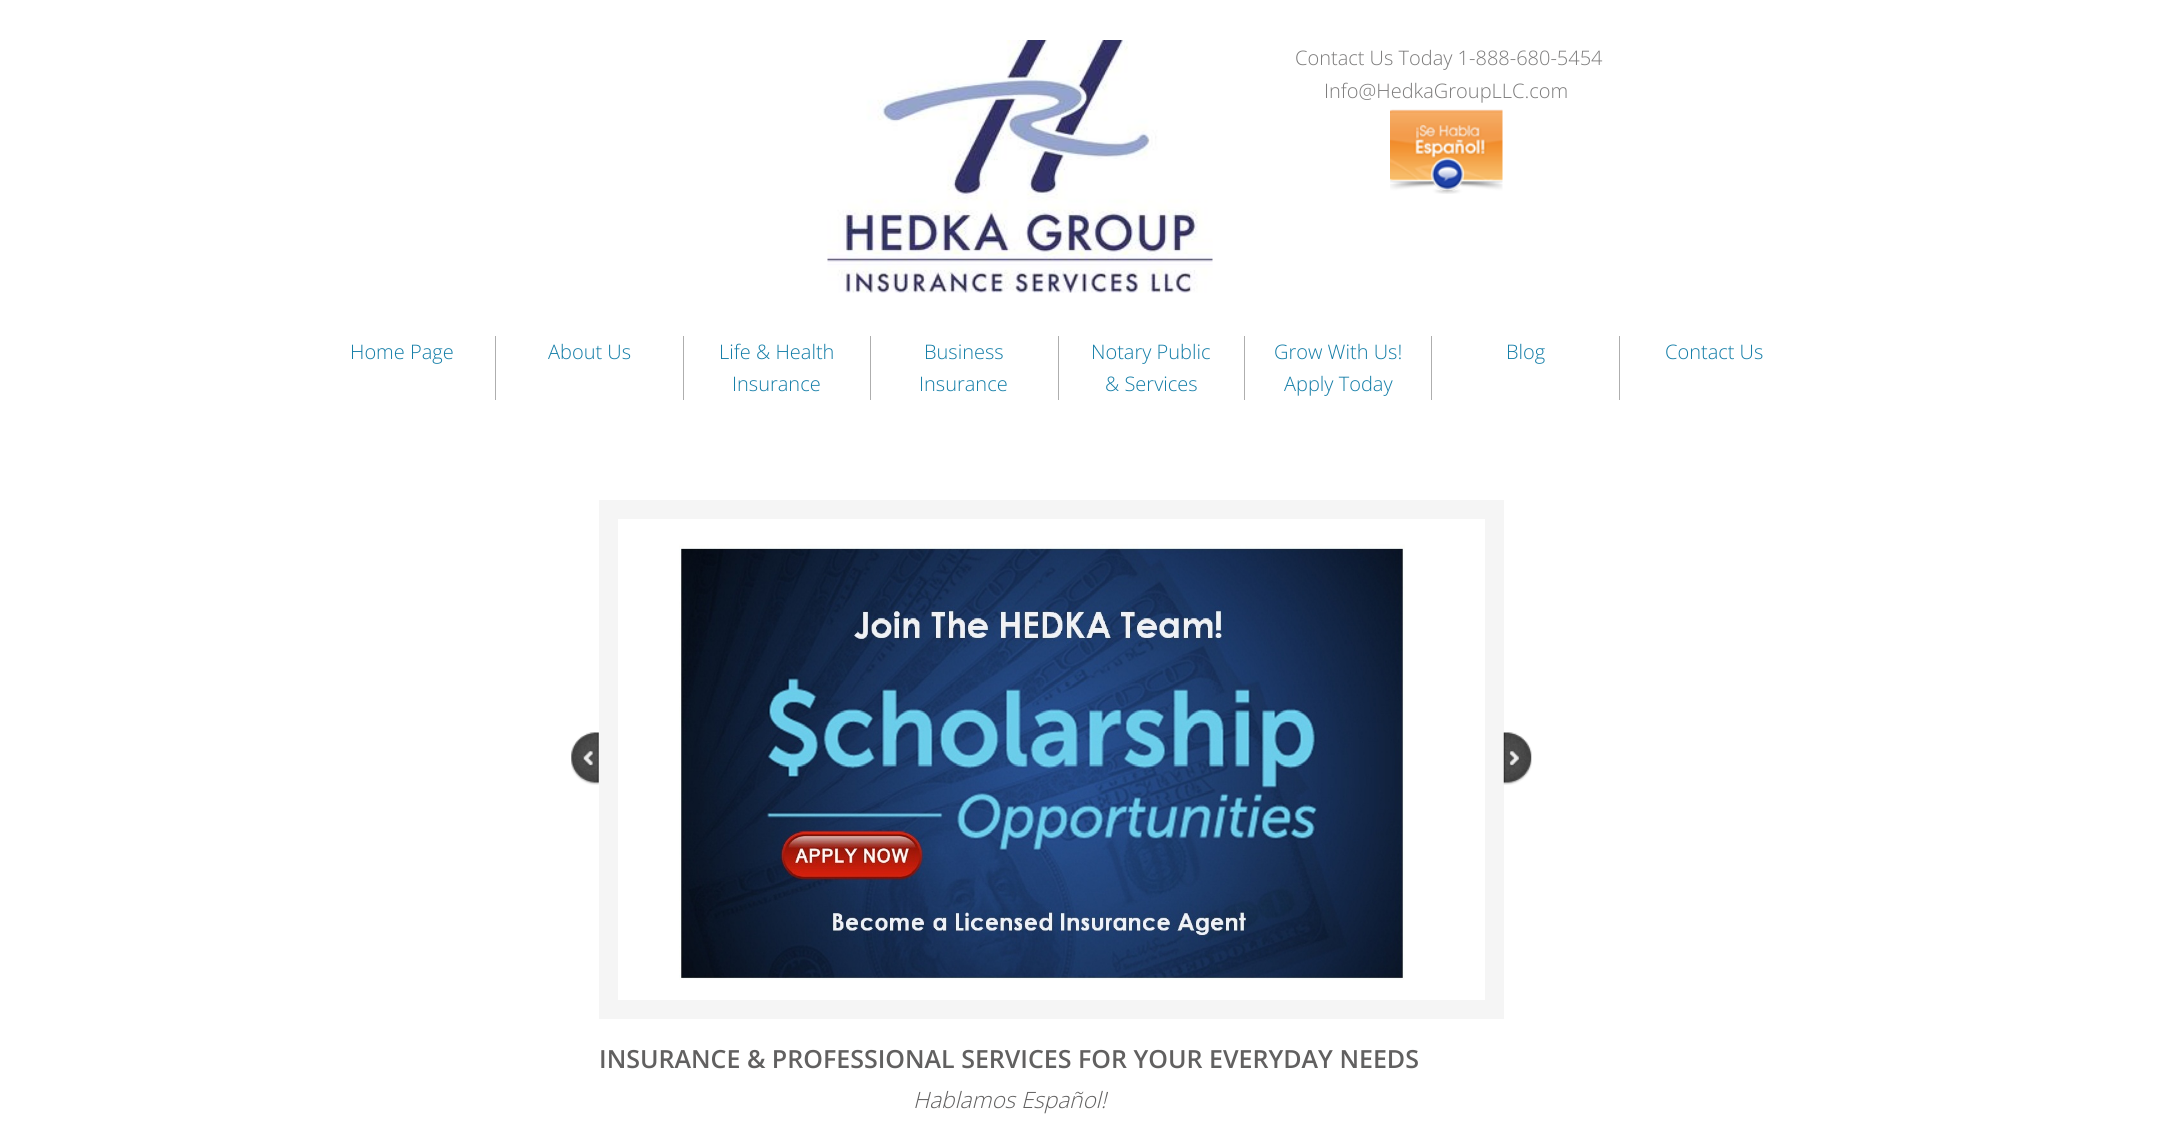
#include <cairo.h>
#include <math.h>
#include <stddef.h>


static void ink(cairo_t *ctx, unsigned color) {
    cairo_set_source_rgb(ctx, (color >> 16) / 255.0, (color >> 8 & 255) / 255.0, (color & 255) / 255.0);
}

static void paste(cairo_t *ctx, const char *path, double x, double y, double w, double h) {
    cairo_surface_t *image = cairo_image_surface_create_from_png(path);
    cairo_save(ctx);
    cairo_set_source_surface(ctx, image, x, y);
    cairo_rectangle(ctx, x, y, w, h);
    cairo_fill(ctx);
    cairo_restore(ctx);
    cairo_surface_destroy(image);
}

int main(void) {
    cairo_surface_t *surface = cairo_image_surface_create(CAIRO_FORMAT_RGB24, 2183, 1128);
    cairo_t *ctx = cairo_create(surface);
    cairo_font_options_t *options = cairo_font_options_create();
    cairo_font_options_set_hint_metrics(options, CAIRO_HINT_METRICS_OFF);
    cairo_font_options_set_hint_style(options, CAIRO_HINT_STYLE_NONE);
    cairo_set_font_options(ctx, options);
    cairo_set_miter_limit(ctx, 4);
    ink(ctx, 0xFFFFFF);
    cairo_paint(ctx);
    paste(ctx, "media/1.png", 827, 40, 386, 253);
    cairo_select_font_face(ctx, "Open Sans Light", CAIRO_FONT_SLANT_NORMAL, CAIRO_FONT_WEIGHT_NORMAL);
    cairo_set_font_size(ctx, 20);
    ink(ctx, 0x7C7B7B);
    cairo_move_to(ctx, 1295, 65);
    cairo_show_text(ctx, "Contact Us Today 1-888-680-5454");
    cairo_move_to(ctx, 1324, 98);
    cairo_show_text(ctx, "Info@HedkaGroupLLC.com");
    paste(ctx, "media/2.png", 1390, 109, 113, 85);
    ink(ctx, 0xAEAEAE);
    cairo_rectangle(ctx, 495, 336, 1, 64);
    cairo_fill(ctx);
    ink(ctx, 0x137DA7);
    cairo_move_to(ctx, 350, 359);
    cairo_show_text(ctx, "Home Page");
    ink(ctx, 0xAEAEAE);
    cairo_rectangle(ctx, 683, 336, 1, 64);
    cairo_fill(ctx);
    ink(ctx, 0x137DA7);
    cairo_move_to(ctx, 548, 359);
    cairo_show_text(ctx, "About Us");
    ink(ctx, 0xAEAEAE);
    cairo_rectangle(ctx, 870, 336, 1, 64);
    cairo_fill(ctx);
    ink(ctx, 0x137DA7);
    cairo_move_to(ctx, 719, 359);
    cairo_show_text(ctx, "Life & Health");
    cairo_move_to(ctx, 732, 391);
    cairo_show_text(ctx, "Insurance");
    ink(ctx, 0xAEAEAE);
    cairo_rectangle(ctx, 1058, 336, 1, 64);
    cairo_fill(ctx);
    ink(ctx, 0x137DA7);
    cairo_move_to(ctx, 924, 359);
    cairo_show_text(ctx, "Business");
    cairo_move_to(ctx, 919, 391);
    cairo_show_text(ctx, "Insurance");
    ink(ctx, 0xAEAEAE);
    cairo_rectangle(ctx, 1244, 336, 1, 64);
    cairo_fill(ctx);
    ink(ctx, 0x137DA7);
    cairo_move_to(ctx, 1091, 359);
    cairo_show_text(ctx, "Notary Public");
    cairo_move_to(ctx, 1105, 391);
    cairo_show_text(ctx, "& Services");
    ink(ctx, 0xAEAEAE);
    cairo_rectangle(ctx, 1431, 336, 1, 64);
    cairo_fill(ctx);
    ink(ctx, 0x137DA7);
    cairo_move_to(ctx, 1274, 359);
    cairo_show_text(ctx, "Grow With Us!");
    cairo_move_to(ctx, 1284, 391);
    cairo_show_text(ctx, "Apply Today");
    ink(ctx, 0xAEAEAE);
    cairo_rectangle(ctx, 1619, 336, 1, 64);
    cairo_fill(ctx);
    ink(ctx, 0x137DA7);
    cairo_move_to(ctx, 1506, 359);
    cairo_show_text(ctx, "Blog");
    cairo_move_to(ctx, 1665, 359);
    cairo_show_text(ctx, "Contact Us");
    paste(ctx, "media/3.png", 571, 732, 28, 53);
    cairo_rectangle(ctx, 608.5, 509.5, 886, 500);
    ink(ctx, 0xF5F5F5);
    cairo_set_line_width(ctx, 19);
    cairo_stroke(ctx);
    paste(ctx, "media/4.png", 679, 544, 726, 436);
    paste(ctx, "media/5.png", 1503, 732, 29, 53);
    cairo_select_font_face(ctx, "Open Sans SemiBold", CAIRO_FONT_SLANT_NORMAL, CAIRO_FONT_WEIGHT_NORMAL);
    cairo_set_font_size(ctx, 25);
    ink(ctx, 0x616060);
    cairo_move_to(ctx, 599, 1068);
    cairo_show_text(ctx, "INSURANCE & PROFESSIONAL SERVICES FOR YOUR EVERYDAY NEEDS");
    cairo_select_font_face(ctx, "Open Sans Light", CAIRO_FONT_SLANT_ITALIC, CAIRO_FONT_WEIGHT_NORMAL);
    cairo_set_font_size(ctx, 22.5);
    cairo_move_to(ctx, 913, 1108);
    cairo_show_text(ctx, "Hablamos Español!");
    cairo_surface_write_to_png(surface, "image.png");
    cairo_font_options_destroy(options);
    cairo_destroy(ctx);
    cairo_surface_destroy(surface);
    return 0;
}
